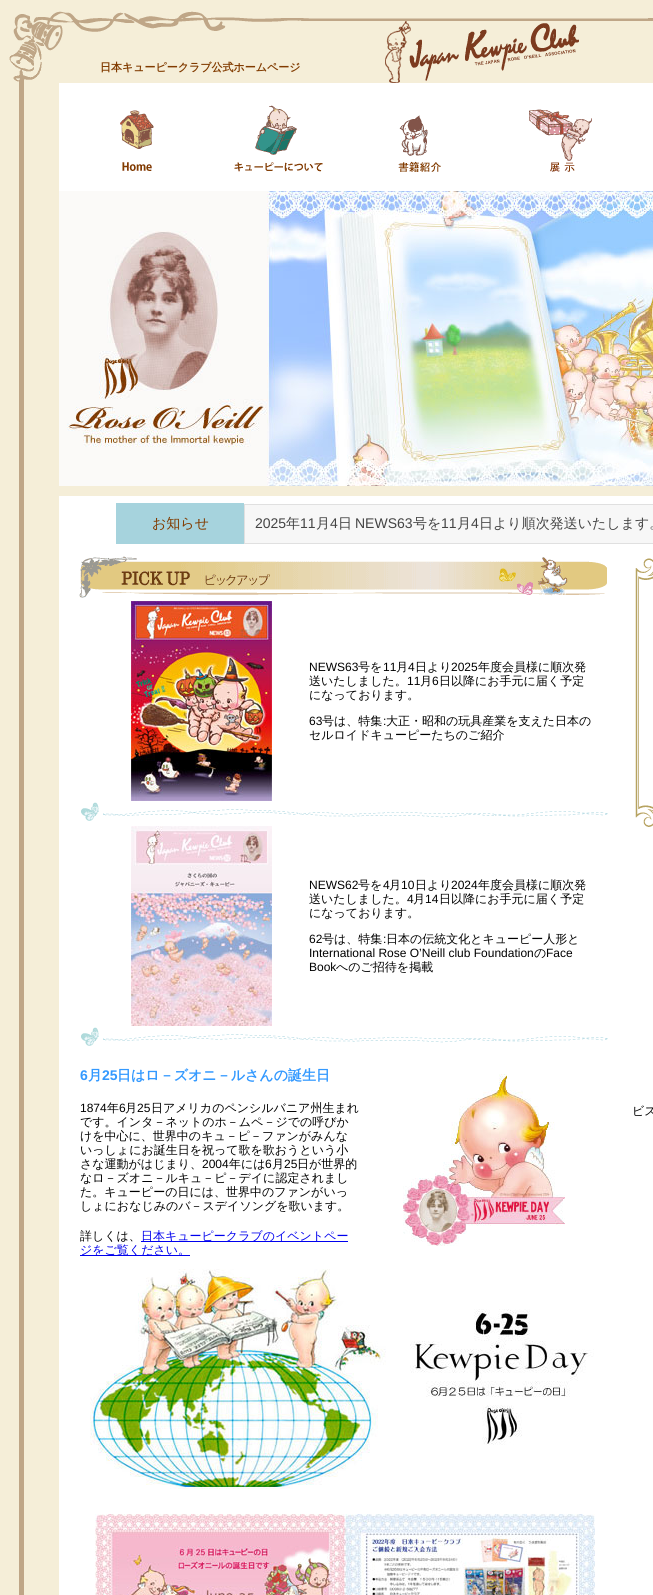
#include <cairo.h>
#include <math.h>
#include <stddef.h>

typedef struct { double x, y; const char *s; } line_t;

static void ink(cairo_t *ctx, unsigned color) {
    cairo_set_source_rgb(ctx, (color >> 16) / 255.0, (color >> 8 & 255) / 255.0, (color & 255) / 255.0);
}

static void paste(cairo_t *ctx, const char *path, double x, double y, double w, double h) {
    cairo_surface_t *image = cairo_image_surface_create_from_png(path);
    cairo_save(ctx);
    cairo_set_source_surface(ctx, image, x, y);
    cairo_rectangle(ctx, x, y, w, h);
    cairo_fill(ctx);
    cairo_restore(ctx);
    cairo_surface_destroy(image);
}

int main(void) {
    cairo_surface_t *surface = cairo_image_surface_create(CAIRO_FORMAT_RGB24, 653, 1595);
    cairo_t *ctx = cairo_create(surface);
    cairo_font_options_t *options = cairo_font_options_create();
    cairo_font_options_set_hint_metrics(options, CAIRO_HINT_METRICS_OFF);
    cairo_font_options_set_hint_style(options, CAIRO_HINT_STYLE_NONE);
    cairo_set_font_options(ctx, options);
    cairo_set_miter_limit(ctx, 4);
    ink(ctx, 0xF5EED8);
    cairo_paint(ctx);
    ink(ctx, 0xBFA687);
    cairo_rectangle(ctx, 648, 18, 5, 3);
    cairo_fill(ctx);
    paste(ctx, "media/1.png", 13, 11, 635, 40);
    paste(ctx, "media/2.png", 9, 51, 33, 32);
    cairo_select_font_face(ctx, "WenQuanYi Zen Hei", CAIRO_FONT_SLANT_NORMAL, CAIRO_FONT_WEIGHT_BOLD);
    cairo_set_font_size(ctx, 11);
    ink(ctx, 0x813B00);
    cairo_move_to(ctx, 100, 71);
    cairo_show_text(ctx, "日本キューピークラブ公式ホームページ");
    paste(ctx, "media/3.png", 385, 51, 191, 32);
    ink(ctx, 0xBFA687);
    cairo_rectangle(ctx, 19, 83, 5, 1512);
    cairo_fill(ctx);
    ink(ctx, 0xFFFFFF);
    cairo_rectangle(ctx, 59, 83, 594, 108);
    cairo_fill(ctx);
    paste(ctx, "media/4.png", 120, 110, 34, 61);
    paste(ctx, "media/5.png", 234, 105, 89, 67);
    paste(ctx, "media/6.png", 398, 115, 43, 57);
    paste(ctx, "media/7.png", 529, 109, 63, 63);
    paste(ctx, "media/8.png", 59, 191, 594, 295);
    cairo_rectangle(ctx, 59, 496, 594, 1099);
    cairo_fill(ctx);
    ink(ctx, 0xA6D3DD);
    cairo_rectangle(ctx, 116, 503, 128, 41);
    cairo_fill(ctx);
    cairo_select_font_face(ctx, "WenQuanYi Zen Hei Medium", CAIRO_FONT_SLANT_NORMAL, CAIRO_FONT_WEIGHT_NORMAL);
    cairo_set_font_size(ctx, 14);
    ink(ctx, 0x813B00);
    cairo_move_to(ctx, 152, 528);
    cairo_show_text(ctx, "お知らせ");
    ink(ctx, 0xF7F7F7);
    cairo_rectangle(ctx, 244.5, 504.5, 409, 39);
    cairo_fill_preserve(ctx);
    ink(ctx, 0xE0E0E0);
    cairo_set_line_width(ctx, 1);
    cairo_stroke(ctx);
    cairo_select_font_face(ctx, "Liberation Sans", CAIRO_FONT_SLANT_NORMAL, CAIRO_FONT_WEIGHT_NORMAL);
    ink(ctx, 0x444444);
    cairo_move_to(ctx, 255, 528);
    cairo_show_text(ctx, "2025");
    cairo_select_font_face(ctx, "WenQuanYi Zen Hei Medium", CAIRO_FONT_SLANT_NORMAL, CAIRO_FONT_WEIGHT_NORMAL);
    cairo_move_to(ctx, 286, 528);
    cairo_show_text(ctx, "年");
    cairo_select_font_face(ctx, "Liberation Sans", CAIRO_FONT_SLANT_NORMAL, CAIRO_FONT_WEIGHT_NORMAL);
    cairo_move_to(ctx, 300, 528);
    cairo_show_text(ctx, "11");
    cairo_select_font_face(ctx, "WenQuanYi Zen Hei Medium", CAIRO_FONT_SLANT_NORMAL, CAIRO_FONT_WEIGHT_NORMAL);
    cairo_move_to(ctx, 316, 528);
    cairo_show_text(ctx, "月");
    cairo_select_font_face(ctx, "Liberation Sans", CAIRO_FONT_SLANT_NORMAL, CAIRO_FONT_WEIGHT_NORMAL);
    cairo_move_to(ctx, 330, 528);
    cairo_show_text(ctx, "4");
    cairo_select_font_face(ctx, "WenQuanYi Zen Hei Medium", CAIRO_FONT_SLANT_NORMAL, CAIRO_FONT_WEIGHT_NORMAL);
    cairo_move_to(ctx, 338, 528);
    cairo_show_text(ctx, "日");
    cairo_select_font_face(ctx, "Liberation Sans", CAIRO_FONT_SLANT_NORMAL, CAIRO_FONT_WEIGHT_NORMAL);
    cairo_move_to(ctx, 355, 528);
    cairo_show_text(ctx, "NEWS63");
    cairo_select_font_face(ctx, "WenQuanYi Zen Hei Medium", CAIRO_FONT_SLANT_NORMAL, CAIRO_FONT_WEIGHT_NORMAL);
    cairo_move_to(ctx, 413, 528);
    cairo_show_text(ctx, "号を");
    cairo_select_font_face(ctx, "Liberation Sans", CAIRO_FONT_SLANT_NORMAL, CAIRO_FONT_WEIGHT_NORMAL);
    cairo_move_to(ctx, 441, 528);
    cairo_show_text(ctx, "11");
    cairo_select_font_face(ctx, "WenQuanYi Zen Hei Medium", CAIRO_FONT_SLANT_NORMAL, CAIRO_FONT_WEIGHT_NORMAL);
    cairo_move_to(ctx, 457, 528);
    cairo_show_text(ctx, "月");
    cairo_select_font_face(ctx, "Liberation Sans", CAIRO_FONT_SLANT_NORMAL, CAIRO_FONT_WEIGHT_NORMAL);
    cairo_move_to(ctx, 471, 528);
    cairo_show_text(ctx, "4");
    cairo_select_font_face(ctx, "WenQuanYi Zen Hei Medium", CAIRO_FONT_SLANT_NORMAL, CAIRO_FONT_WEIGHT_NORMAL);
    cairo_move_to(ctx, 479, 528);
    cairo_show_text(ctx, "日より順次発送いたします。");
    paste(ctx, "media/9.png", 79, 556, 528, 42);
    paste(ctx, "media/10.png", 131, 601, 141, 200);
    cairo_select_font_face(ctx, "Liberation Sans", CAIRO_FONT_SLANT_NORMAL, CAIRO_FONT_WEIGHT_NORMAL);
    cairo_set_font_size(ctx, 12);
    ink(ctx, 0x000000);
    cairo_move_to(ctx, 309, 671);
    cairo_show_text(ctx, "NEWS63");
    cairo_select_font_face(ctx, "WenQuanYi Zen Hei Medium", CAIRO_FONT_SLANT_NORMAL, CAIRO_FONT_WEIGHT_NORMAL);
    cairo_move_to(ctx, 358, 671);
    cairo_show_text(ctx, "号を");
    cairo_select_font_face(ctx, "Liberation Sans", CAIRO_FONT_SLANT_NORMAL, CAIRO_FONT_WEIGHT_NORMAL);
    cairo_move_to(ctx, 383, 671);
    cairo_show_text(ctx, "11");
    cairo_select_font_face(ctx, "WenQuanYi Zen Hei Medium", CAIRO_FONT_SLANT_NORMAL, CAIRO_FONT_WEIGHT_NORMAL);
    cairo_move_to(ctx, 396, 671);
    cairo_show_text(ctx, "月");
    cairo_select_font_face(ctx, "Liberation Sans", CAIRO_FONT_SLANT_NORMAL, CAIRO_FONT_WEIGHT_NORMAL);
    cairo_move_to(ctx, 408, 671);
    cairo_show_text(ctx, "4");
    cairo_select_font_face(ctx, "WenQuanYi Zen Hei Medium", CAIRO_FONT_SLANT_NORMAL, CAIRO_FONT_WEIGHT_NORMAL);
    cairo_move_to(ctx, 415, 671);
    cairo_show_text(ctx, "日より");
    cairo_select_font_face(ctx, "Liberation Sans", CAIRO_FONT_SLANT_NORMAL, CAIRO_FONT_WEIGHT_NORMAL);
    cairo_move_to(ctx, 451, 671);
    cairo_show_text(ctx, "2025");
    cairo_select_font_face(ctx, "WenQuanYi Zen Hei Medium", CAIRO_FONT_SLANT_NORMAL, CAIRO_FONT_WEIGHT_NORMAL);
    cairo_move_to(ctx, 478, 671);
    cairo_show_text(ctx, "年度会員様に順次発");
    cairo_move_to(ctx, 309, 685);
    cairo_show_text(ctx, "送いたしました。");
    cairo_select_font_face(ctx, "Liberation Sans", CAIRO_FONT_SLANT_NORMAL, CAIRO_FONT_WEIGHT_NORMAL);
    cairo_move_to(ctx, 407, 685);
    cairo_show_text(ctx, "11");
    cairo_select_font_face(ctx, "WenQuanYi Zen Hei Medium", CAIRO_FONT_SLANT_NORMAL, CAIRO_FONT_WEIGHT_NORMAL);
    cairo_move_to(ctx, 420, 685);
    cairo_show_text(ctx, "月");
    cairo_select_font_face(ctx, "Liberation Sans", CAIRO_FONT_SLANT_NORMAL, CAIRO_FONT_WEIGHT_NORMAL);
    cairo_move_to(ctx, 432, 685);
    cairo_show_text(ctx, "6");
    cairo_select_font_face(ctx, "WenQuanYi Zen Hei Medium", CAIRO_FONT_SLANT_NORMAL, CAIRO_FONT_WEIGHT_NORMAL);
    cairo_move_to(ctx, 439, 685);
    cairo_show_text(ctx, "日以降にお手元に届く予定");
    cairo_move_to(ctx, 309, 699);
    cairo_show_text(ctx, "になっております。");
    cairo_select_font_face(ctx, "Liberation Sans", CAIRO_FONT_SLANT_NORMAL, CAIRO_FONT_WEIGHT_NORMAL);
    cairo_move_to(ctx, 309, 725);
    cairo_show_text(ctx, "63");
    cairo_select_font_face(ctx, "WenQuanYi Zen Hei Medium", CAIRO_FONT_SLANT_NORMAL, CAIRO_FONT_WEIGHT_NORMAL);
    cairo_move_to(ctx, 322, 725);
    cairo_show_text(ctx, "号は、特集 大正・昭和の玩具産業を支えた日本の");
    cairo_select_font_face(ctx, "Liberation Sans", CAIRO_FONT_SLANT_NORMAL, CAIRO_FONT_WEIGHT_NORMAL);
    cairo_move_to(ctx, 383, 725);
    cairo_show_text(ctx, ":");
    cairo_select_font_face(ctx, "WenQuanYi Zen Hei Medium", CAIRO_FONT_SLANT_NORMAL, CAIRO_FONT_WEIGHT_NORMAL);
    cairo_move_to(ctx, 309, 739);
    cairo_show_text(ctx, "セルロイドキューピーたちのご紹介");
    paste(ctx, "media/11.png", 81, 802, 527, 19);
    paste(ctx, "media/12.png", 131, 826, 141, 200);
    cairo_select_font_face(ctx, "Liberation Sans", CAIRO_FONT_SLANT_NORMAL, CAIRO_FONT_WEIGHT_NORMAL);
    cairo_move_to(ctx, 309, 889);
    cairo_show_text(ctx, "NEWS62");
    cairo_select_font_face(ctx, "WenQuanYi Zen Hei Medium", CAIRO_FONT_SLANT_NORMAL, CAIRO_FONT_WEIGHT_NORMAL);
    cairo_move_to(ctx, 358, 889);
    cairo_show_text(ctx, "号を");
    cairo_select_font_face(ctx, "Liberation Sans", CAIRO_FONT_SLANT_NORMAL, CAIRO_FONT_WEIGHT_NORMAL);
    cairo_move_to(ctx, 383, 889);
    cairo_show_text(ctx, "4");
    cairo_select_font_face(ctx, "WenQuanYi Zen Hei Medium", CAIRO_FONT_SLANT_NORMAL, CAIRO_FONT_WEIGHT_NORMAL);
    cairo_move_to(ctx, 389, 889);
    cairo_show_text(ctx, "月");
    cairo_select_font_face(ctx, "Liberation Sans", CAIRO_FONT_SLANT_NORMAL, CAIRO_FONT_WEIGHT_NORMAL);
    cairo_move_to(ctx, 401, 889);
    cairo_show_text(ctx, "10");
    cairo_select_font_face(ctx, "WenQuanYi Zen Hei Medium", CAIRO_FONT_SLANT_NORMAL, CAIRO_FONT_WEIGHT_NORMAL);
    cairo_move_to(ctx, 415, 889);
    cairo_show_text(ctx, "日より");
    cairo_select_font_face(ctx, "Liberation Sans", CAIRO_FONT_SLANT_NORMAL, CAIRO_FONT_WEIGHT_NORMAL);
    cairo_move_to(ctx, 451, 889);
    cairo_show_text(ctx, "2024");
    cairo_select_font_face(ctx, "WenQuanYi Zen Hei Medium", CAIRO_FONT_SLANT_NORMAL, CAIRO_FONT_WEIGHT_NORMAL);
    cairo_move_to(ctx, 478, 889);
    cairo_show_text(ctx, "年度会員様に順次発");
    cairo_move_to(ctx, 309, 903);
    cairo_show_text(ctx, "送いたしました。");
    cairo_select_font_face(ctx, "Liberation Sans", CAIRO_FONT_SLANT_NORMAL, CAIRO_FONT_WEIGHT_NORMAL);
    cairo_move_to(ctx, 407, 903);
    cairo_show_text(ctx, "4");
    cairo_select_font_face(ctx, "WenQuanYi Zen Hei Medium", CAIRO_FONT_SLANT_NORMAL, CAIRO_FONT_WEIGHT_NORMAL);
    cairo_move_to(ctx, 413, 903);
    cairo_show_text(ctx, "月");
    cairo_select_font_face(ctx, "Liberation Sans", CAIRO_FONT_SLANT_NORMAL, CAIRO_FONT_WEIGHT_NORMAL);
    cairo_move_to(ctx, 425, 903);
    cairo_show_text(ctx, "14");
    cairo_select_font_face(ctx, "WenQuanYi Zen Hei Medium", CAIRO_FONT_SLANT_NORMAL, CAIRO_FONT_WEIGHT_NORMAL);
    cairo_move_to(ctx, 439, 903);
    cairo_show_text(ctx, "日以降にお手元に届く予定");
    cairo_move_to(ctx, 309, 917);
    cairo_show_text(ctx, "になっております。");
    cairo_select_font_face(ctx, "Liberation Sans", CAIRO_FONT_SLANT_NORMAL, CAIRO_FONT_WEIGHT_NORMAL);
    cairo_move_to(ctx, 309, 943);
    cairo_show_text(ctx, "62");
    cairo_select_font_face(ctx, "WenQuanYi Zen Hei Medium", CAIRO_FONT_SLANT_NORMAL, CAIRO_FONT_WEIGHT_NORMAL);
    cairo_move_to(ctx, 322, 943);
    cairo_show_text(ctx, "号は、特集 日本の伝統文化とキューピー人形と");
    cairo_select_font_face(ctx, "Liberation Sans", CAIRO_FONT_SLANT_NORMAL, CAIRO_FONT_WEIGHT_NORMAL);
    cairo_move_to(ctx, 383, 943);
    cairo_show_text(ctx, ":");
    cairo_move_to(ctx, 309, 957);
    cairo_show_text(ctx, "International Rose O’Neill club Foundation");
    cairo_select_font_face(ctx, "WenQuanYi Zen Hei Medium", CAIRO_FONT_SLANT_NORMAL, CAIRO_FONT_WEIGHT_NORMAL);
    cairo_move_to(ctx, 534, 957);
    cairo_show_text(ctx, "の");
    cairo_select_font_face(ctx, "Liberation Sans", CAIRO_FONT_SLANT_NORMAL, CAIRO_FONT_WEIGHT_NORMAL);
    cairo_move_to(ctx, 546, 957);
    cairo_show_text(ctx, "Face");
    cairo_move_to(ctx, 309, 971);
    cairo_show_text(ctx, "Book");
    cairo_select_font_face(ctx, "WenQuanYi Zen Hei Medium", CAIRO_FONT_SLANT_NORMAL, CAIRO_FONT_WEIGHT_NORMAL);
    cairo_move_to(ctx, 336, 971);
    cairo_show_text(ctx, "へのご招待を掲載");
    paste(ctx, "media/11.png", 81, 1027, 527, 19);
    cairo_select_font_face(ctx, "Liberation Sans", CAIRO_FONT_SLANT_NORMAL, CAIRO_FONT_WEIGHT_BOLD);
    cairo_set_font_size(ctx, 14);
    ink(ctx, 0x3399FF);
    cairo_move_to(ctx, 80, 1080);
    cairo_show_text(ctx, "6");
    cairo_select_font_face(ctx, "WenQuanYi Zen Hei", CAIRO_FONT_SLANT_NORMAL, CAIRO_FONT_WEIGHT_BOLD);
    cairo_move_to(ctx, 88, 1080);
    cairo_show_text(ctx, "月");
    cairo_select_font_face(ctx, "Liberation Sans", CAIRO_FONT_SLANT_NORMAL, CAIRO_FONT_WEIGHT_BOLD);
    cairo_move_to(ctx, 102, 1080);
    cairo_show_text(ctx, "25");
    cairo_select_font_face(ctx, "WenQuanYi Zen Hei", CAIRO_FONT_SLANT_NORMAL, CAIRO_FONT_WEIGHT_BOLD);
    cairo_move_to(ctx, 117, 1080);
    cairo_show_text(ctx, "日はロ－ズオニ－ルさんの誕生日");
    cairo_select_font_face(ctx, "Liberation Sans", CAIRO_FONT_SLANT_NORMAL, CAIRO_FONT_WEIGHT_NORMAL);
    cairo_set_font_size(ctx, 12);
    ink(ctx, 0x000000);
    cairo_move_to(ctx, 80, 1112);
    cairo_show_text(ctx, "1874");
    cairo_select_font_face(ctx, "WenQuanYi Zen Hei Medium", CAIRO_FONT_SLANT_NORMAL, CAIRO_FONT_WEIGHT_NORMAL);
    cairo_move_to(ctx, 107, 1112);
    cairo_show_text(ctx, "年");
    cairo_select_font_face(ctx, "Liberation Sans", CAIRO_FONT_SLANT_NORMAL, CAIRO_FONT_WEIGHT_NORMAL);
    cairo_move_to(ctx, 119, 1112);
    cairo_show_text(ctx, "6");
    cairo_select_font_face(ctx, "WenQuanYi Zen Hei Medium", CAIRO_FONT_SLANT_NORMAL, CAIRO_FONT_WEIGHT_NORMAL);
    cairo_move_to(ctx, 125, 1112);
    cairo_show_text(ctx, "月");
    cairo_select_font_face(ctx, "Liberation Sans", CAIRO_FONT_SLANT_NORMAL, CAIRO_FONT_WEIGHT_NORMAL);
    cairo_move_to(ctx, 137, 1112);
    cairo_show_text(ctx, "25");
    cairo_select_font_face(ctx, "WenQuanYi Zen Hei Medium", CAIRO_FONT_SLANT_NORMAL, CAIRO_FONT_WEIGHT_NORMAL);
    {
        static const line_t items[] = {
            {151, 1112, "日アメリカのペンシルバニア州生まれ"},
            {80, 1126, "です。インタ－ネットのホ－ムペ－ジでの呼びか"},
            {80, 1140, "けを中心に、世界中のキュ－ピ－ファンがみんな"},
            {80, 1154, "いっしょにお誕生日を祝って歌を歌おうという小"},
            {80, 1168, "さな運動がはじまり、"},
        };
        for (size_t i = 0; i < sizeof items / sizeof *items; i++) {
            cairo_move_to(ctx, items[i].x, items[i].y);
            cairo_show_text(ctx, items[i].s);
        }
    }
    cairo_select_font_face(ctx, "Liberation Sans", CAIRO_FONT_SLANT_NORMAL, CAIRO_FONT_WEIGHT_NORMAL);
    cairo_move_to(ctx, 202, 1168);
    cairo_show_text(ctx, "2004");
    cairo_select_font_face(ctx, "WenQuanYi Zen Hei Medium", CAIRO_FONT_SLANT_NORMAL, CAIRO_FONT_WEIGHT_NORMAL);
    cairo_move_to(ctx, 229, 1168);
    cairo_show_text(ctx, "年には");
    cairo_select_font_face(ctx, "Liberation Sans", CAIRO_FONT_SLANT_NORMAL, CAIRO_FONT_WEIGHT_NORMAL);
    cairo_move_to(ctx, 265, 1168);
    cairo_show_text(ctx, "6");
    cairo_select_font_face(ctx, "WenQuanYi Zen Hei Medium", CAIRO_FONT_SLANT_NORMAL, CAIRO_FONT_WEIGHT_NORMAL);
    cairo_move_to(ctx, 272, 1168);
    cairo_show_text(ctx, "月");
    cairo_select_font_face(ctx, "Liberation Sans", CAIRO_FONT_SLANT_NORMAL, CAIRO_FONT_WEIGHT_NORMAL);
    cairo_move_to(ctx, 284, 1168);
    cairo_show_text(ctx, "25");
    cairo_select_font_face(ctx, "WenQuanYi Zen Hei Medium", CAIRO_FONT_SLANT_NORMAL, CAIRO_FONT_WEIGHT_NORMAL);
    {
        static const line_t items[] = {
            {297, 1168, "日が世界的"},
            {80, 1182, "なロ－ズオニ－ルキュ－ピ－デイに認定されまし"},
            {80, 1196, "た。キューピーの日には、世界中のファンがいっ"},
            {80, 1210, "しょにおなじみのバ－スデイソングを歌います。"},
            {80, 1240, "詳しくは、"},
        };
        for (size_t i = 0; i < sizeof items / sizeof *items; i++) {
            cairo_move_to(ctx, items[i].x, items[i].y);
            cairo_show_text(ctx, items[i].s);
        }
    }
    ink(ctx, 0x0000EE);
    cairo_rectangle(ctx, 141, 1241, 207, 1);
    cairo_fill(ctx);
    cairo_move_to(ctx, 141, 1240);
    cairo_show_text(ctx, "日本キューピークラブのイベントペー");
    cairo_rectangle(ctx, 80, 1255, 110, 1);
    cairo_fill(ctx);
    cairo_move_to(ctx, 80, 1254);
    cairo_show_text(ctx, "ジをご覧ください。");
    paste(ctx, "media/13.png", 403, 1074, 162, 172);
    paste(ctx, "media/14.png", 90, 1269, 504, 220);
    paste(ctx, "media/15.png", 95, 1514, 500, 81);
    paste(ctx, "media/16.png", 635, 558, 18, 269);
    ink(ctx, 0x000000);
    cairo_move_to(ctx, 632, 1115);
    cairo_show_text(ctx, "ビス");
    cairo_surface_write_to_png(surface, "image.png");
    cairo_font_options_destroy(options);
    cairo_destroy(ctx);
    cairo_surface_destroy(surface);
    return 0;
}
